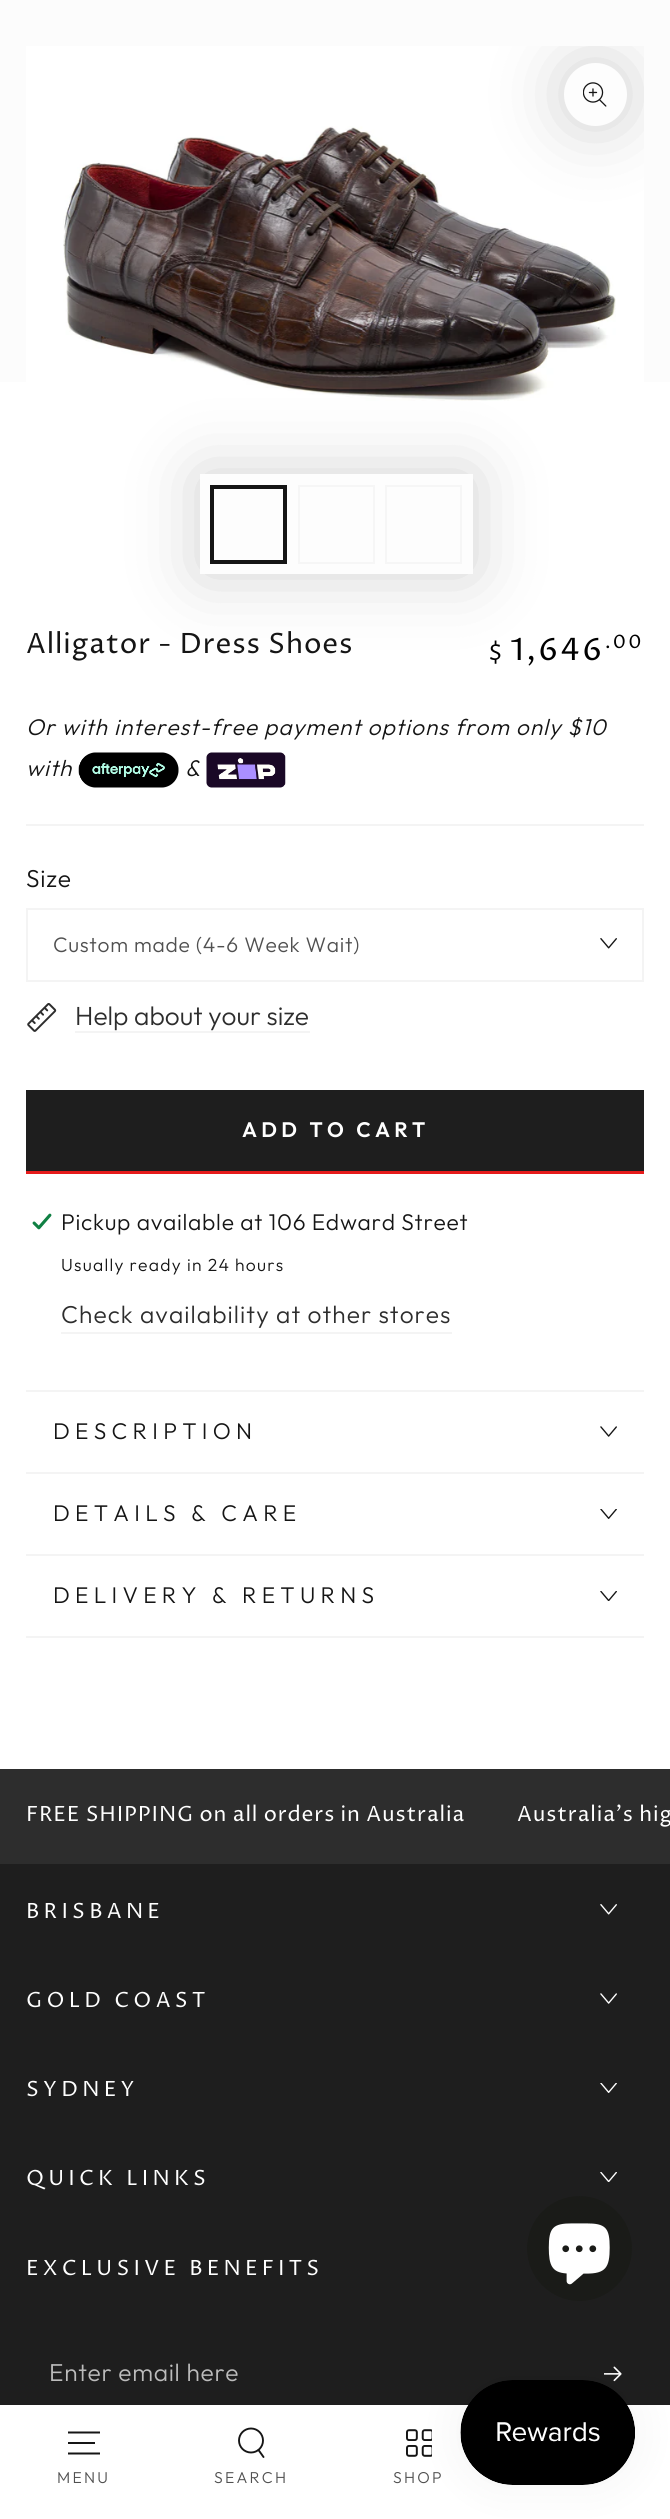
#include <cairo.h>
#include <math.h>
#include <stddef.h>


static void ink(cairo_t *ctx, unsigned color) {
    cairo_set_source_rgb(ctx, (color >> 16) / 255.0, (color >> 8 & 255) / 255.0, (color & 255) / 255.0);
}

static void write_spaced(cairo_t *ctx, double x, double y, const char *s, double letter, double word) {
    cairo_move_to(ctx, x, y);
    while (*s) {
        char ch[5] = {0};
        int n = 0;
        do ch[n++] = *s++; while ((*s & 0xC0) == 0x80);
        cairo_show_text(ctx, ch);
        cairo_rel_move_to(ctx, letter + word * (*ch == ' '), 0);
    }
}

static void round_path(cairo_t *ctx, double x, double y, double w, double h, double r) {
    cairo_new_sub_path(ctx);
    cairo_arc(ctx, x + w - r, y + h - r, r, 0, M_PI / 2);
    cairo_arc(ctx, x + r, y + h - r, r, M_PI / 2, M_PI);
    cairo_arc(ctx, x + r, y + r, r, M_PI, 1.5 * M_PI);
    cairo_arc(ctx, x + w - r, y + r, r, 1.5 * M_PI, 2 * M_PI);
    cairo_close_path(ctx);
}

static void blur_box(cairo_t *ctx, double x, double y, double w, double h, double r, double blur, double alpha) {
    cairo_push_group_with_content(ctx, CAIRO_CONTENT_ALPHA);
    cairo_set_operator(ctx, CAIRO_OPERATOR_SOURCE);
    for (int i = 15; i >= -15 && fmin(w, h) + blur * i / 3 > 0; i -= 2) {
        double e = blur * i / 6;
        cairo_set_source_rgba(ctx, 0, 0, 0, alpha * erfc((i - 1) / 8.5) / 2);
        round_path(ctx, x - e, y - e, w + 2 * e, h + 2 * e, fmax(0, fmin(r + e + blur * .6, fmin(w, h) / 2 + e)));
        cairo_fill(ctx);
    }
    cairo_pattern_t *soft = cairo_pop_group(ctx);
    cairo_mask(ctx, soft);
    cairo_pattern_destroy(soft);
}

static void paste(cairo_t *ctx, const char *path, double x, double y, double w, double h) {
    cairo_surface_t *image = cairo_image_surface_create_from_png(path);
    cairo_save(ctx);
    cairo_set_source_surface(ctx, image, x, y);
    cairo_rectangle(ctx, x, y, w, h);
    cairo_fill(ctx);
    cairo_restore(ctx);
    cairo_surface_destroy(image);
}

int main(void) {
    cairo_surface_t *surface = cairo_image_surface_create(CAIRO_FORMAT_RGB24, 670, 2519);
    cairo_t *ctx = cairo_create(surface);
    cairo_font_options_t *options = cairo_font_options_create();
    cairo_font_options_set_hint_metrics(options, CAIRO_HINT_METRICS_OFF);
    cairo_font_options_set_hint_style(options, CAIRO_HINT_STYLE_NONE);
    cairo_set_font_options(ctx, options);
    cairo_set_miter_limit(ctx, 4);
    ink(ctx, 0xFFFFFF);
    cairo_paint(ctx);
    ink(ctx, 0xFCFCFC);
    cairo_rectangle(ctx, 0, 0, 670, 382);
    cairo_fill(ctx);
    ink(ctx, 0xFFFFFF);
    cairo_rectangle(ctx, 26, 46, 618, 336);
    cairo_fill(ctx);
    paste(ctx, "media/2.png", 63, 126, 553, 275);
    cairo_save(ctx);
    cairo_rectangle(ctx, 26, 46, 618, 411);
    cairo_clip(ctx);
    ink(ctx, 0x151515);
    blur_box(ctx, 564, 63, 63, 63, 31.5, 35, 0.2);
    cairo_restore(ctx);
    ink(ctx, 0xFDFDFD);
    cairo_arc(ctx, 595.5, 94.5, 31.5, 0, 2 * M_PI);
    cairo_fill(ctx);
    paste(ctx, "media/1.png", 583, 82, 24, 25);
    ink(ctx, 0x151515);
    blur_box(ctx, 200, 474, 273, 100, 0, 35, 0.2);
    ink(ctx, 0xFDFDFD);
    cairo_rectangle(ctx, 200, 474, 273, 100);
    cairo_fill(ctx);
    cairo_rectangle(ctx, 212, 487, 73, 75);
    ink(ctx, 0x151515);
    cairo_set_line_width(ctx, 4);
    cairo_stroke(ctx);
    cairo_rectangle(ctx, 299, 486, 75, 77);
    ink(ctx, 0xF6F6F6);
    cairo_set_line_width(ctx, 2);
    cairo_stroke(ctx);
    cairo_rectangle(ctx, 386, 486, 75, 77);
    cairo_stroke(ctx);
    cairo_select_font_face(ctx, "Proza Libre", CAIRO_FONT_SLANT_NORMAL, CAIRO_FONT_WEIGHT_NORMAL);
    cairo_set_font_size(ctx, 28);
    ink(ctx, 0x151515);
    write_spaced(ctx, 26, 653, "Alligator - Dress Shoes", 0.85, 0);
    cairo_set_font_size(ctx, 22);
    ink(ctx, 0x000000);
    write_spaced(ctx, 488, 660, "$", 2.25, 0);
    cairo_set_font_size(ctx, 31);
    write_spaced(ctx, 510, 660, "1,646", 2.25, 0);
    cairo_set_font_size(ctx, 18.5);
    write_spaced(ctx, 605, 648, ".00", 2.25, 0);
    cairo_select_font_face(ctx, "Outfit Light", CAIRO_FONT_SLANT_ITALIC, CAIRO_FONT_WEIGHT_NORMAL);
    cairo_set_font_size(ctx, 22.75);
    ink(ctx, 0x151515);
    write_spaced(ctx, 26, 735, "Or with interest-free payment options from only $10", 1.05, 0);
    write_spaced(ctx, 26, 776, "with", 1.05, 0);
    paste(ctx, "media/3.png", 78, 752, 101, 36);
    write_spaced(ctx, 185, 776, "&", 1.05, 0);
    paste(ctx, "media/4.png", 206, 752, 80, 36);
    ink(ctx, 0xF4F4F4);
    cairo_rectangle(ctx, 26, 824, 618, 2);
    cairo_fill(ctx);
    cairo_select_font_face(ctx, "Outfit Light", CAIRO_FONT_SLANT_NORMAL, CAIRO_FONT_WEIGHT_NORMAL);
    cairo_set_font_size(ctx, 24.5);
    ink(ctx, 0x151515);
    write_spaced(ctx, 26, 887, "Size", 0.7, 0);
    cairo_rectangle(ctx, 27, 909, 616, 72);
    ink(ctx, 0xF4F4F4);
    cairo_stroke(ctx);
    cairo_set_font_size(ctx, 21);
    ink(ctx, 0x505050);
    write_spaced(ctx, 53, 952, "Custom made (4-6 Week Wait)", 0.7, 0);
    paste(ctx, "media/5.png", 600, 938, 17, 11);
    paste(ctx, "media/6.png", 27, 1003, 30, 29);
    ink(ctx, 0xF4F4F4);
    cairo_rectangle(ctx, 75, 1031, 235, 2);
    cairo_fill(ctx);
    cairo_set_font_size(ctx, 26.25);
    ink(ctx, 0x2D2D2D);
    cairo_move_to(ctx, 75, 1025);
    cairo_show_text(ctx, "Help about your size");
    ink(ctx, 0xE61B1B);
    cairo_new_path(ctx);
    cairo_move_to(ctx, 26, 1094);
    cairo_line_to(ctx, 26, 1174);
    cairo_line_to(ctx, 644, 1174);
    cairo_line_to(ctx, 644, 1171);
    cairo_line_to(ctx, 26, 1171);
    cairo_close_path(ctx);
    cairo_fill(ctx);
    ink(ctx, 0x1E1E1E);
    cairo_rectangle(ctx, 26, 1090, 618, 81);
    cairo_fill(ctx);
    cairo_select_font_face(ctx, "Outfit SemiBold", CAIRO_FONT_SLANT_NORMAL, CAIRO_FONT_WEIGHT_NORMAL);
    cairo_set_font_size(ctx, 21);
    ink(ctx, 0xFFFFFF);
    write_spaced(ctx, 242, 1137, "ADD TO CART", 4.25, 0);
    paste(ctx, "media/7.png", 32, 1213, 20, 17);
    cairo_select_font_face(ctx, "Outfit Light", CAIRO_FONT_SLANT_NORMAL, CAIRO_FONT_WEIGHT_NORMAL);
    cairo_set_font_size(ctx, 22.75);
    ink(ctx, 0x151515);
    write_spaced(ctx, 61, 1230, "Pickup available at 106 Edward Street", 0.7, 0);
    cairo_set_font_size(ctx, 17.5);
    write_spaced(ctx, 61, 1271, "Usually ready in 24 hours", 1.25, 0);
    ink(ctx, 0xF4F4F4);
    cairo_rectangle(ctx, 61, 1332, 391, 2);
    cairo_fill(ctx);
    cairo_set_font_size(ctx, 24.5);
    ink(ctx, 0x2D2D2D);
    write_spaced(ctx, 61, 1323, "Check availability at other stores", 1.05, 0);
    ink(ctx, 0xF4F4F4);
    cairo_rectangle(ctx, 26, 1390, 618, 2);
    cairo_fill(ctx);
    cairo_rectangle(ctx, 26, 1472, 618, 2);
    cairo_fill(ctx);
    cairo_set_font_size(ctx, 22.75);
    ink(ctx, 0x151515);
    write_spaced(ctx, 53, 1439, "DESCRIPTION", 5.25, 0);
    paste(ctx, "media/8.png", 600, 1426, 17, 11);
    ink(ctx, 0xF4F4F4);
    cairo_rectangle(ctx, 26, 1554, 618, 2);
    cairo_fill(ctx);
    ink(ctx, 0x151515);
    write_spaced(ctx, 53, 1521, "DETAILS & CARE", 5.25, 0);
    paste(ctx, "media/9.png", 600, 1509, 17, 10);
    ink(ctx, 0xF4F4F4);
    cairo_rectangle(ctx, 26, 1636, 618, 2);
    cairo_fill(ctx);
    ink(ctx, 0x151515);
    write_spaced(ctx, 53, 1603, "DELIVERY & RETURNS", 5.25, 0);
    paste(ctx, "media/10.png", 600, 1591, 17, 10);
    ink(ctx, 0x2D2D2D);
    cairo_rectangle(ctx, 0, 1769, 670, 95);
    cairo_fill(ctx);
    cairo_select_font_face(ctx, "Proza Libre", CAIRO_FONT_SLANT_NORMAL, CAIRO_FONT_WEIGHT_NORMAL);
    cairo_set_font_size(ctx, 21);
    ink(ctx, 0xFFFFFF);
    write_spaced(ctx, 26, 1821, "FREE SHIPPING on all orders in Australia", 0.85, 0);
    write_spaced(ctx, 517, 1821, "Australia's hig", 0.85, 0);
    ink(ctx, 0x1E1E1E);
    cairo_rectangle(ctx, 0, 1864, 670, 541);
    cairo_fill(ctx);
    ink(ctx, 0xFFFFFF);
    write_spaced(ctx, 26, 1918, "BRISBANE", 4.25, 0);
    paste(ctx, "media/11.png", 600, 1904, 17, 11);
    write_spaced(ctx, 26, 2007, "GOLD COAST", 4.25, 0);
    paste(ctx, "media/12.png", 600, 1993, 17, 11);
    write_spaced(ctx, 26, 2096, "SYDNEY", 4.25, 0);
    paste(ctx, "media/13.png", 600, 2083, 17, 10);
    write_spaced(ctx, 26, 2185, "QUICK LINKS", 4.25, 0);
    paste(ctx, "media/14.png", 600, 2172, 17, 10);
    write_spaced(ctx, 26, 2275, "EXCLUSIVE BENEFITS", 4.25, 0);
    cairo_select_font_face(ctx, "Outfit Light", CAIRO_FONT_SLANT_NORMAL, CAIRO_FONT_WEIGHT_NORMAL);
    cairo_set_font_size(ctx, 24.5);
    ink(ctx, 0xBCBCBC);
    write_spaced(ctx, 49, 2381, "Enter email here", 0.7, 0);
    paste(ctx, "media/15.png", 604, 2366, 18, 16);
    cairo_new_path(ctx);
    cairo_move_to(ctx, 68, 2453.5);
    cairo_line_to(ctx, 100, 2453.5);
    cairo_move_to(ctx, 68, 2443);
    cairo_line_to(ctx, 95, 2443);
    cairo_move_to(ctx, 68, 2432.5);
    cairo_line_to(ctx, 100, 2432.5);
    ink(ctx, 0x151515);
    cairo_stroke(ctx);
    cairo_set_font_size(ctx, 15.75);
    ink(ctx, 0x505050);
    write_spaced(ctx, 57, 2483, "MENU", 2.25, 0);
    cairo_new_path(ctx);
    cairo_arc(ctx, 251, 2440.5, 12, 0, 2 * M_PI);
    ink(ctx, 0x151515);
    cairo_set_line_width(ctx, 1.9);
    cairo_stroke(ctx);
    cairo_new_path(ctx);
    cairo_move_to(ctx, 258.5, 2450);
    cairo_line_to(ctx, 263.5, 2457);
    cairo_set_line_cap(ctx, CAIRO_LINE_CAP_ROUND);
    cairo_stroke(ctx);
    ink(ctx, 0x505050);
    write_spaced(ctx, 214, 2483, "SEARCH", 2.25, 0);
    paste(ctx, "media/16.png", 406, 2429, 26, 28);
    write_spaced(ctx, 393, 2483, "SHOP", 2.25, 0);
    ink(ctx, 0x1A1B18);
    cairo_new_path(ctx);
    cairo_arc(ctx, 579.5, 2248.5, 52.5, 0, 2 * M_PI);
    cairo_fill(ctx);
    paste(ctx, "media/17.png", 548, 2223, 62, 62);
    ink(ctx, 0x000000);
    blur_box(ctx, 460, 2380, 175, 105, 52.5, 22, 0.05);
    paste(ctx, "media/18.png", 460, 2380, 175, 105);
    cairo_surface_write_to_png(surface, "image.png");
    cairo_font_options_destroy(options);
    cairo_destroy(ctx);
    cairo_surface_destroy(surface);
    return 0;
}
